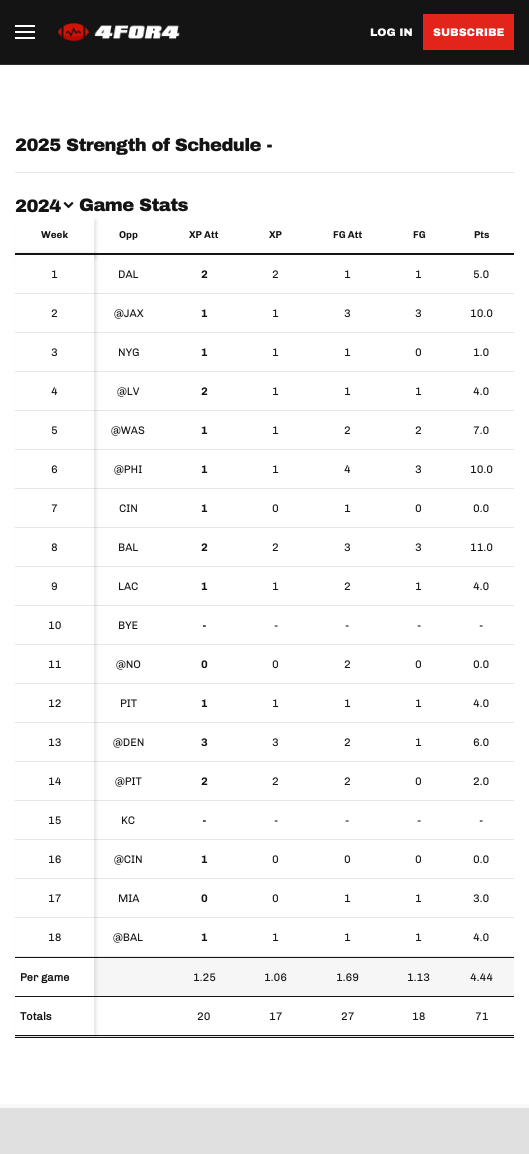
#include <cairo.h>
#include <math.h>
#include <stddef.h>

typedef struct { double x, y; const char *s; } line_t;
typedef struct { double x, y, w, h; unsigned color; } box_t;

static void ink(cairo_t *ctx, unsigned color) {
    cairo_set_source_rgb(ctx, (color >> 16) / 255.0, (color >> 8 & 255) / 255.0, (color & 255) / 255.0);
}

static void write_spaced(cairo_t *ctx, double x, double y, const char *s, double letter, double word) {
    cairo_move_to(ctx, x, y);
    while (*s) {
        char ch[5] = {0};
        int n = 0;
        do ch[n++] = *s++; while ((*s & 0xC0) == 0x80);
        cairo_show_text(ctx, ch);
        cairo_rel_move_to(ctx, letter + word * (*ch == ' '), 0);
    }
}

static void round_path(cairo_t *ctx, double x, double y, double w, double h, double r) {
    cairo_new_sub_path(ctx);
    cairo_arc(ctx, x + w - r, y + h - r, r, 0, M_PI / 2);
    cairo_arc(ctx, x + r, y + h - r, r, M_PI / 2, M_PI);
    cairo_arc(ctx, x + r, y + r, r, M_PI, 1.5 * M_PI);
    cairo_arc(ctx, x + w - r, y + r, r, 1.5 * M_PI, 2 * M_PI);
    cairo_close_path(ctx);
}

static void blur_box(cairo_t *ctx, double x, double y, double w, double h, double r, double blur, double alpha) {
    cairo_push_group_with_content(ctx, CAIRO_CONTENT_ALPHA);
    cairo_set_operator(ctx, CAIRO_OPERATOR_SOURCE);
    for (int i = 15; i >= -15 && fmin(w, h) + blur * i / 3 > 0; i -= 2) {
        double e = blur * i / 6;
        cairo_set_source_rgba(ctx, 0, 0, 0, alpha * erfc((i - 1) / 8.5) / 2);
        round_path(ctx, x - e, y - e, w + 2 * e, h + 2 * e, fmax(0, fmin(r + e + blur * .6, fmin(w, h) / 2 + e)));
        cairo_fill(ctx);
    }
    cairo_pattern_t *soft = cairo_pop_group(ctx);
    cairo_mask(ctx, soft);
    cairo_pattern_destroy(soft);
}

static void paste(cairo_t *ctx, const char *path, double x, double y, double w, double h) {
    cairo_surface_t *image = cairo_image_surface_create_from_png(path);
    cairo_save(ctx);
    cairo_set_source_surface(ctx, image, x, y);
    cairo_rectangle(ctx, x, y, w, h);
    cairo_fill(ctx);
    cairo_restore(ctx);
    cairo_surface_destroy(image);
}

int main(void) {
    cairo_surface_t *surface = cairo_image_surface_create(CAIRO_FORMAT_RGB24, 529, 1154);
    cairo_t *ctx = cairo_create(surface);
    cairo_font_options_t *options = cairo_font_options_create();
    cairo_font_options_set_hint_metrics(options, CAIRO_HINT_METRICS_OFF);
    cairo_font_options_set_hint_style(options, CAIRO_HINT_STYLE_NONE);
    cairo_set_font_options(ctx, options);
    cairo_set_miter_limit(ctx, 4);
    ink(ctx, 0xFFFFFF);
    cairo_paint(ctx);
    {
        static const box_t items[] = {
            {0, 1104, 529, 4, 0xF8F8F8},
            {0, 0, 529, 64, 0x141414},
            {0, 64, 529, 1, 0x2D2D2D},
            {15, 31, 20, 2, 0xFFFFFF},
            {15, 25, 20, 2, 0xFFFFFF},
            {15, 37, 20, 2, 0xFFFFFF},
        };
        for (size_t i = 0; i < sizeof items / sizeof *items; i++) {
            ink(ctx, items[i].color);
            cairo_rectangle(ctx, items[i].x, items[i].y, items[i].w, items[i].h);
            cairo_fill(ctx);
        }
    }
    paste(ctx, "media/1.png", 58, 23, 122, 18);
    cairo_select_font_face(ctx, "archivo Black", CAIRO_FONT_SLANT_NORMAL, CAIRO_FONT_WEIGHT_NORMAL);
    cairo_set_font_size(ctx, 11);
    cairo_move_to(ctx, 370, 36);
    cairo_show_text(ctx, "LOG IN");
    ink(ctx, 0xE3241A);
    cairo_rectangle(ctx, 423, 14, 91, 36);
    cairo_fill(ctx);
    ink(ctx, 0xFFFFFF);
    cairo_move_to(ctx, 433, 36);
    cairo_show_text(ctx, "SUBSCRIBE");
    ink(ctx, 0xE7E7E7);
    cairo_rectangle(ctx, 15, 172, 499, 1);
    cairo_fill(ctx);
    cairo_set_font_size(ctx, 18);
    ink(ctx, 0x141414);
    write_spaced(ctx, 15, 151, "2025 Strength of Schedule -", -0.6, 0);
    write_spaced(ctx, 15, 212, "2024", -0.6, 0);
    paste(ctx, "media/2.png", 63, 202, 11, 7);
    write_spaced(ctx, 79, 211, "Game Stats", -0.6, 0);
    cairo_rectangle(ctx, 94, 253, 420, 2);
    cairo_fill(ctx);
    ink(ctx, 0x000000);
    blur_box(ctx, 17, 220, 79, 38, 0, 2, 0.12);
    ink(ctx, 0xFFFFFF);
    cairo_rectangle(ctx, 15, 217, 79, 36);
    cairo_fill(ctx);
    ink(ctx, 0x141414);
    cairo_rectangle(ctx, 15, 253, 79, 2);
    cairo_fill(ctx);
    cairo_select_font_face(ctx, "chivo", CAIRO_FONT_SLANT_NORMAL, CAIRO_FONT_WEIGHT_BOLD);
    cairo_set_font_size(ctx, 10);
    cairo_move_to(ctx, 41, 238);
    cairo_show_text(ctx, "Week");
    {
        static const box_t items[] = {
            {15, 1036, 499, 1, 0xE7E7E7},
            {94, 293, 420, 1, 0xE7E7E7},
            {94, 332, 420, 1, 0xE7E7E7},
            {94, 371, 420, 1, 0xE7E7E7},
            {94, 410, 420, 1, 0xE7E7E7},
            {94, 449, 420, 1, 0xE7E7E7},
            {94, 488, 420, 1, 0xE7E7E7},
            {94, 527, 420, 1, 0xE7E7E7},
            {94, 566, 420, 1, 0xE7E7E7},
            {94, 605, 420, 1, 0xE7E7E7},
            {94, 644, 420, 1, 0xE7E7E7},
            {94, 683, 420, 1, 0xE7E7E7},
            {94, 722, 420, 1, 0xE7E7E7},
            {94, 761, 420, 1, 0xE7E7E7},
            {94, 800, 420, 1, 0xE7E7E7},
            {94, 839, 420, 1, 0xE7E7E7},
            {94, 878, 420, 1, 0xE7E7E7},
            {94, 917, 420, 1, 0xE7E7E7},
            {94, 956, 420, 1, 0xE7E7E7},
            {94, 958, 420, 38, 0xF6F6F6},
            {94, 957, 420, 1, 0x141414},
            {94, 996, 420, 1, 0x141414},
            {94, 1035, 420, 1, 0x141414},
            {15, 1037, 499, 1, 0x111111},
        };
        for (size_t i = 0; i < sizeof items / sizeof *items; i++) {
            ink(ctx, items[i].color);
            cairo_rectangle(ctx, items[i].x, items[i].y, items[i].w, items[i].h);
            cairo_fill(ctx);
        }
    }
    ink(ctx, 0x000000);
    blur_box(ctx, 17, 253, 79, 782, 0, 2, 0.12);
    ink(ctx, 0xFFFFFF);
    cairo_rectangle(ctx, 15, 255, 79, 38);
    cairo_fill(ctx);
    ink(ctx, 0xE7E7E7);
    cairo_rectangle(ctx, 15, 293, 79, 1);
    cairo_fill(ctx);
    cairo_select_font_face(ctx, "chivo", CAIRO_FONT_SLANT_NORMAL, CAIRO_FONT_WEIGHT_NORMAL);
    cairo_set_font_size(ctx, 11);
    ink(ctx, 0x141414);
    cairo_move_to(ctx, 51, 278);
    cairo_show_text(ctx, "1");
    ink(ctx, 0xFFFFFF);
    cairo_rectangle(ctx, 15, 294, 79, 38);
    cairo_fill(ctx);
    ink(ctx, 0xE7E7E7);
    cairo_rectangle(ctx, 15, 332, 79, 1);
    cairo_fill(ctx);
    ink(ctx, 0x141414);
    cairo_move_to(ctx, 51, 317);
    cairo_show_text(ctx, "2");
    ink(ctx, 0xFFFFFF);
    cairo_rectangle(ctx, 15, 333, 79, 38);
    cairo_fill(ctx);
    ink(ctx, 0xE7E7E7);
    cairo_rectangle(ctx, 15, 371, 79, 1);
    cairo_fill(ctx);
    ink(ctx, 0x141414);
    cairo_move_to(ctx, 51, 356);
    cairo_show_text(ctx, "3");
    ink(ctx, 0xFFFFFF);
    cairo_rectangle(ctx, 15, 372, 79, 38);
    cairo_fill(ctx);
    ink(ctx, 0xE7E7E7);
    cairo_rectangle(ctx, 15, 410, 79, 1);
    cairo_fill(ctx);
    ink(ctx, 0x141414);
    cairo_move_to(ctx, 51, 395);
    cairo_show_text(ctx, "4");
    ink(ctx, 0xFFFFFF);
    cairo_rectangle(ctx, 15, 411, 79, 38);
    cairo_fill(ctx);
    ink(ctx, 0xE7E7E7);
    cairo_rectangle(ctx, 15, 449, 79, 1);
    cairo_fill(ctx);
    ink(ctx, 0x141414);
    cairo_move_to(ctx, 51, 434);
    cairo_show_text(ctx, "5");
    ink(ctx, 0xFFFFFF);
    cairo_rectangle(ctx, 15, 450, 79, 38);
    cairo_fill(ctx);
    ink(ctx, 0xE7E7E7);
    cairo_rectangle(ctx, 15, 488, 79, 1);
    cairo_fill(ctx);
    ink(ctx, 0x141414);
    cairo_move_to(ctx, 51, 473);
    cairo_show_text(ctx, "6");
    ink(ctx, 0xFFFFFF);
    cairo_rectangle(ctx, 15, 489, 79, 38);
    cairo_fill(ctx);
    ink(ctx, 0xE7E7E7);
    cairo_rectangle(ctx, 15, 527, 79, 1);
    cairo_fill(ctx);
    ink(ctx, 0x141414);
    cairo_move_to(ctx, 51, 512);
    cairo_show_text(ctx, "7");
    ink(ctx, 0xFFFFFF);
    cairo_rectangle(ctx, 15, 528, 79, 38);
    cairo_fill(ctx);
    ink(ctx, 0xE7E7E7);
    cairo_rectangle(ctx, 15, 566, 79, 1);
    cairo_fill(ctx);
    ink(ctx, 0x141414);
    cairo_move_to(ctx, 51, 551);
    cairo_show_text(ctx, "8");
    ink(ctx, 0xFFFFFF);
    cairo_rectangle(ctx, 15, 567, 79, 38);
    cairo_fill(ctx);
    ink(ctx, 0xE7E7E7);
    cairo_rectangle(ctx, 15, 605, 79, 1);
    cairo_fill(ctx);
    ink(ctx, 0x141414);
    cairo_move_to(ctx, 51, 590);
    cairo_show_text(ctx, "9");
    ink(ctx, 0xFFFFFF);
    cairo_rectangle(ctx, 15, 606, 79, 38);
    cairo_fill(ctx);
    ink(ctx, 0xE7E7E7);
    cairo_rectangle(ctx, 15, 644, 79, 1);
    cairo_fill(ctx);
    ink(ctx, 0x141414);
    cairo_move_to(ctx, 48, 629);
    cairo_show_text(ctx, "10");
    ink(ctx, 0xFFFFFF);
    cairo_rectangle(ctx, 15, 645, 79, 38);
    cairo_fill(ctx);
    ink(ctx, 0xE7E7E7);
    cairo_rectangle(ctx, 15, 683, 79, 1);
    cairo_fill(ctx);
    ink(ctx, 0x141414);
    cairo_move_to(ctx, 48, 668);
    cairo_show_text(ctx, "11");
    ink(ctx, 0xFFFFFF);
    cairo_rectangle(ctx, 15, 684, 79, 38);
    cairo_fill(ctx);
    ink(ctx, 0xE7E7E7);
    cairo_rectangle(ctx, 15, 722, 79, 1);
    cairo_fill(ctx);
    ink(ctx, 0x141414);
    cairo_move_to(ctx, 48, 707);
    cairo_show_text(ctx, "12");
    ink(ctx, 0xFFFFFF);
    cairo_rectangle(ctx, 15, 723, 79, 38);
    cairo_fill(ctx);
    ink(ctx, 0xE7E7E7);
    cairo_rectangle(ctx, 15, 761, 79, 1);
    cairo_fill(ctx);
    ink(ctx, 0x141414);
    cairo_move_to(ctx, 48, 746);
    cairo_show_text(ctx, "13");
    ink(ctx, 0xFFFFFF);
    cairo_rectangle(ctx, 15, 762, 79, 38);
    cairo_fill(ctx);
    ink(ctx, 0xE7E7E7);
    cairo_rectangle(ctx, 15, 800, 79, 1);
    cairo_fill(ctx);
    ink(ctx, 0x141414);
    cairo_move_to(ctx, 48, 785);
    cairo_show_text(ctx, "14");
    ink(ctx, 0xFFFFFF);
    cairo_rectangle(ctx, 15, 801, 79, 38);
    cairo_fill(ctx);
    ink(ctx, 0xE7E7E7);
    cairo_rectangle(ctx, 15, 839, 79, 1);
    cairo_fill(ctx);
    ink(ctx, 0x141414);
    cairo_move_to(ctx, 48, 824);
    cairo_show_text(ctx, "15");
    ink(ctx, 0xFFFFFF);
    cairo_rectangle(ctx, 15, 840, 79, 38);
    cairo_fill(ctx);
    ink(ctx, 0xE7E7E7);
    cairo_rectangle(ctx, 15, 878, 79, 1);
    cairo_fill(ctx);
    ink(ctx, 0x141414);
    cairo_move_to(ctx, 48, 863);
    cairo_show_text(ctx, "16");
    ink(ctx, 0xFFFFFF);
    cairo_rectangle(ctx, 15, 879, 79, 38);
    cairo_fill(ctx);
    ink(ctx, 0xE7E7E7);
    cairo_rectangle(ctx, 15, 917, 79, 1);
    cairo_fill(ctx);
    ink(ctx, 0x141414);
    cairo_move_to(ctx, 48, 902);
    cairo_show_text(ctx, "17");
    ink(ctx, 0xFFFFFF);
    cairo_rectangle(ctx, 15, 918, 79, 38);
    cairo_fill(ctx);
    ink(ctx, 0xE7E7E7);
    cairo_rectangle(ctx, 15, 956, 79, 1);
    cairo_fill(ctx);
    ink(ctx, 0x141414);
    cairo_move_to(ctx, 48, 941);
    cairo_show_text(ctx, "18");
    {
        static const box_t items[] = {
            {15, 958, 79, 38, 0xFFFFFF},
            {15, 957, 79, 1, 0x141414},
            {15, 996, 79, 1, 0x141414},
        };
        for (size_t i = 0; i < sizeof items / sizeof *items; i++) {
            ink(ctx, items[i].color);
            cairo_rectangle(ctx, items[i].x, items[i].y, items[i].w, items[i].h);
            cairo_fill(ctx);
        }
    }
    cairo_select_font_face(ctx, "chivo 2", CAIRO_FONT_SLANT_NORMAL, CAIRO_FONT_WEIGHT_BOLD);
    cairo_move_to(ctx, 20, 981);
    cairo_show_text(ctx, "Per game");
    ink(ctx, 0xFFFFFF);
    cairo_rectangle(ctx, 15, 997, 79, 38);
    cairo_fill(ctx);
    ink(ctx, 0x141414);
    cairo_rectangle(ctx, 15, 1035, 79, 1);
    cairo_fill(ctx);
    cairo_move_to(ctx, 20, 1020);
    cairo_show_text(ctx, "Totals");
    cairo_select_font_face(ctx, "chivo", CAIRO_FONT_SLANT_NORMAL, CAIRO_FONT_WEIGHT_BOLD);
    cairo_set_font_size(ctx, 10);
    {
        static const line_t items[] = {
            {119, 238, "Opp"},
            {189, 238, "XP Att"},
            {269, 238, "XP"},
            {333, 238, "FG Att"},
            {413, 238, "FG"},
            {474, 238, "Pts"},
        };
        for (size_t i = 0; i < sizeof items / sizeof *items; i++) {
            cairo_move_to(ctx, items[i].x, items[i].y);
            cairo_show_text(ctx, items[i].s);
        }
    }
    cairo_select_font_face(ctx, "chivo", CAIRO_FONT_SLANT_NORMAL, CAIRO_FONT_WEIGHT_NORMAL);
    cairo_set_font_size(ctx, 11);
    cairo_move_to(ctx, 118, 278);
    cairo_show_text(ctx, "DAL");
    cairo_select_font_face(ctx, "chivo", CAIRO_FONT_SLANT_NORMAL, CAIRO_FONT_WEIGHT_BOLD);
    cairo_move_to(ctx, 201, 278);
    cairo_show_text(ctx, "2");
    cairo_select_font_face(ctx, "chivo", CAIRO_FONT_SLANT_NORMAL, CAIRO_FONT_WEIGHT_NORMAL);
    {
        static const line_t items[] = {
            {272, 278, "2"},
            {344, 278, "1"},
            {415, 278, "1"},
            {473, 278, "5.0"},
            {114, 317, "@JAX"},
        };
        for (size_t i = 0; i < sizeof items / sizeof *items; i++) {
            cairo_move_to(ctx, items[i].x, items[i].y);
            cairo_show_text(ctx, items[i].s);
        }
    }
    cairo_select_font_face(ctx, "chivo", CAIRO_FONT_SLANT_NORMAL, CAIRO_FONT_WEIGHT_BOLD);
    cairo_move_to(ctx, 201, 317);
    cairo_show_text(ctx, "1");
    cairo_select_font_face(ctx, "chivo", CAIRO_FONT_SLANT_NORMAL, CAIRO_FONT_WEIGHT_NORMAL);
    {
        static const line_t items[] = {
            {272, 317, "1"},
            {344, 317, "3"},
            {415, 317, "3"},
            {470, 317, "10.0"},
            {118, 356, "NYG"},
        };
        for (size_t i = 0; i < sizeof items / sizeof *items; i++) {
            cairo_move_to(ctx, items[i].x, items[i].y);
            cairo_show_text(ctx, items[i].s);
        }
    }
    cairo_select_font_face(ctx, "chivo", CAIRO_FONT_SLANT_NORMAL, CAIRO_FONT_WEIGHT_BOLD);
    cairo_move_to(ctx, 201, 356);
    cairo_show_text(ctx, "1");
    cairo_select_font_face(ctx, "chivo", CAIRO_FONT_SLANT_NORMAL, CAIRO_FONT_WEIGHT_NORMAL);
    {
        static const line_t items[] = {
            {272, 356, "1"},
            {344, 356, "1"},
            {415, 356, "0"},
            {473, 356, "1.0"},
            {117, 395, "@LV"},
        };
        for (size_t i = 0; i < sizeof items / sizeof *items; i++) {
            cairo_move_to(ctx, items[i].x, items[i].y);
            cairo_show_text(ctx, items[i].s);
        }
    }
    cairo_select_font_face(ctx, "chivo", CAIRO_FONT_SLANT_NORMAL, CAIRO_FONT_WEIGHT_BOLD);
    cairo_move_to(ctx, 201, 395);
    cairo_show_text(ctx, "2");
    cairo_select_font_face(ctx, "chivo", CAIRO_FONT_SLANT_NORMAL, CAIRO_FONT_WEIGHT_NORMAL);
    {
        static const line_t items[] = {
            {272, 395, "1"},
            {344, 395, "1"},
            {415, 395, "1"},
            {473, 395, "4.0"},
            {111, 434, "@WAS"},
        };
        for (size_t i = 0; i < sizeof items / sizeof *items; i++) {
            cairo_move_to(ctx, items[i].x, items[i].y);
            cairo_show_text(ctx, items[i].s);
        }
    }
    cairo_select_font_face(ctx, "chivo", CAIRO_FONT_SLANT_NORMAL, CAIRO_FONT_WEIGHT_BOLD);
    cairo_move_to(ctx, 201, 434);
    cairo_show_text(ctx, "1");
    cairo_select_font_face(ctx, "chivo", CAIRO_FONT_SLANT_NORMAL, CAIRO_FONT_WEIGHT_NORMAL);
    {
        static const line_t items[] = {
            {272, 434, "1"},
            {344, 434, "2"},
            {415, 434, "2"},
            {473, 434, "7.0"},
            {114, 473, "@PHI"},
        };
        for (size_t i = 0; i < sizeof items / sizeof *items; i++) {
            cairo_move_to(ctx, items[i].x, items[i].y);
            cairo_show_text(ctx, items[i].s);
        }
    }
    cairo_select_font_face(ctx, "chivo", CAIRO_FONT_SLANT_NORMAL, CAIRO_FONT_WEIGHT_BOLD);
    cairo_move_to(ctx, 201, 473);
    cairo_show_text(ctx, "1");
    cairo_select_font_face(ctx, "chivo", CAIRO_FONT_SLANT_NORMAL, CAIRO_FONT_WEIGHT_NORMAL);
    {
        static const line_t items[] = {
            {272, 473, "1"},
            {344, 473, "4"},
            {415, 473, "3"},
            {470, 473, "10.0"},
            {119, 512, "CIN"},
        };
        for (size_t i = 0; i < sizeof items / sizeof *items; i++) {
            cairo_move_to(ctx, items[i].x, items[i].y);
            cairo_show_text(ctx, items[i].s);
        }
    }
    cairo_select_font_face(ctx, "chivo", CAIRO_FONT_SLANT_NORMAL, CAIRO_FONT_WEIGHT_BOLD);
    cairo_move_to(ctx, 201, 512);
    cairo_show_text(ctx, "1");
    cairo_select_font_face(ctx, "chivo", CAIRO_FONT_SLANT_NORMAL, CAIRO_FONT_WEIGHT_NORMAL);
    {
        static const line_t items[] = {
            {272, 512, "0"},
            {344, 512, "1"},
            {415, 512, "0"},
            {473, 512, "0.0"},
            {118, 551, "BAL"},
        };
        for (size_t i = 0; i < sizeof items / sizeof *items; i++) {
            cairo_move_to(ctx, items[i].x, items[i].y);
            cairo_show_text(ctx, items[i].s);
        }
    }
    cairo_select_font_face(ctx, "chivo", CAIRO_FONT_SLANT_NORMAL, CAIRO_FONT_WEIGHT_BOLD);
    cairo_move_to(ctx, 201, 551);
    cairo_show_text(ctx, "2");
    cairo_select_font_face(ctx, "chivo", CAIRO_FONT_SLANT_NORMAL, CAIRO_FONT_WEIGHT_NORMAL);
    {
        static const line_t items[] = {
            {272, 551, "2"},
            {344, 551, "3"},
            {415, 551, "3"},
            {470, 551, "11.0"},
            {118, 590, "LAC"},
        };
        for (size_t i = 0; i < sizeof items / sizeof *items; i++) {
            cairo_move_to(ctx, items[i].x, items[i].y);
            cairo_show_text(ctx, items[i].s);
        }
    }
    cairo_select_font_face(ctx, "chivo", CAIRO_FONT_SLANT_NORMAL, CAIRO_FONT_WEIGHT_BOLD);
    cairo_move_to(ctx, 201, 590);
    cairo_show_text(ctx, "1");
    cairo_select_font_face(ctx, "chivo", CAIRO_FONT_SLANT_NORMAL, CAIRO_FONT_WEIGHT_NORMAL);
    {
        static const line_t items[] = {
            {272, 590, "1"},
            {344, 590, "2"},
            {415, 590, "1"},
            {473, 590, "4.0"},
            {118, 629, "BYE"},
        };
        for (size_t i = 0; i < sizeof items / sizeof *items; i++) {
            cairo_move_to(ctx, items[i].x, items[i].y);
            cairo_show_text(ctx, items[i].s);
        }
    }
    cairo_select_font_face(ctx, "chivo", CAIRO_FONT_SLANT_NORMAL, CAIRO_FONT_WEIGHT_BOLD);
    cairo_move_to(ctx, 203, 629);
    cairo_show_text(ctx, "-");
    cairo_select_font_face(ctx, "chivo", CAIRO_FONT_SLANT_NORMAL, CAIRO_FONT_WEIGHT_NORMAL);
    {
        static const line_t items[] = {
            {274, 629, "-"},
            {345, 629, "-"},
            {417, 629, "-"},
            {479, 629, "-"},
            {116, 668, "@NO"},
        };
        for (size_t i = 0; i < sizeof items / sizeof *items; i++) {
            cairo_move_to(ctx, items[i].x, items[i].y);
            cairo_show_text(ctx, items[i].s);
        }
    }
    cairo_select_font_face(ctx, "chivo", CAIRO_FONT_SLANT_NORMAL, CAIRO_FONT_WEIGHT_BOLD);
    cairo_move_to(ctx, 201, 668);
    cairo_show_text(ctx, "0");
    cairo_select_font_face(ctx, "chivo", CAIRO_FONT_SLANT_NORMAL, CAIRO_FONT_WEIGHT_NORMAL);
    {
        static const line_t items[] = {
            {272, 668, "0"},
            {344, 668, "2"},
            {415, 668, "0"},
            {473, 668, "0.0"},
            {120, 707, "PIT"},
        };
        for (size_t i = 0; i < sizeof items / sizeof *items; i++) {
            cairo_move_to(ctx, items[i].x, items[i].y);
            cairo_show_text(ctx, items[i].s);
        }
    }
    cairo_select_font_face(ctx, "chivo", CAIRO_FONT_SLANT_NORMAL, CAIRO_FONT_WEIGHT_BOLD);
    cairo_move_to(ctx, 201, 707);
    cairo_show_text(ctx, "1");
    cairo_select_font_face(ctx, "chivo", CAIRO_FONT_SLANT_NORMAL, CAIRO_FONT_WEIGHT_NORMAL);
    {
        static const line_t items[] = {
            {272, 707, "1"},
            {344, 707, "1"},
            {415, 707, "1"},
            {473, 707, "4.0"},
            {113, 746, "@DEN"},
        };
        for (size_t i = 0; i < sizeof items / sizeof *items; i++) {
            cairo_move_to(ctx, items[i].x, items[i].y);
            cairo_show_text(ctx, items[i].s);
        }
    }
    cairo_select_font_face(ctx, "chivo", CAIRO_FONT_SLANT_NORMAL, CAIRO_FONT_WEIGHT_BOLD);
    cairo_move_to(ctx, 201, 746);
    cairo_show_text(ctx, "3");
    cairo_select_font_face(ctx, "chivo", CAIRO_FONT_SLANT_NORMAL, CAIRO_FONT_WEIGHT_NORMAL);
    {
        static const line_t items[] = {
            {272, 746, "3"},
            {344, 746, "2"},
            {415, 746, "1"},
            {473, 746, "6.0"},
            {115, 785, "@PIT"},
        };
        for (size_t i = 0; i < sizeof items / sizeof *items; i++) {
            cairo_move_to(ctx, items[i].x, items[i].y);
            cairo_show_text(ctx, items[i].s);
        }
    }
    cairo_select_font_face(ctx, "chivo", CAIRO_FONT_SLANT_NORMAL, CAIRO_FONT_WEIGHT_BOLD);
    cairo_move_to(ctx, 201, 785);
    cairo_show_text(ctx, "2");
    cairo_select_font_face(ctx, "chivo", CAIRO_FONT_SLANT_NORMAL, CAIRO_FONT_WEIGHT_NORMAL);
    {
        static const line_t items[] = {
            {272, 785, "2"},
            {344, 785, "2"},
            {415, 785, "0"},
            {473, 785, "2.0"},
            {121, 824, "KC"},
        };
        for (size_t i = 0; i < sizeof items / sizeof *items; i++) {
            cairo_move_to(ctx, items[i].x, items[i].y);
            cairo_show_text(ctx, items[i].s);
        }
    }
    cairo_select_font_face(ctx, "chivo", CAIRO_FONT_SLANT_NORMAL, CAIRO_FONT_WEIGHT_BOLD);
    cairo_move_to(ctx, 203, 824);
    cairo_show_text(ctx, "-");
    cairo_select_font_face(ctx, "chivo", CAIRO_FONT_SLANT_NORMAL, CAIRO_FONT_WEIGHT_NORMAL);
    {
        static const line_t items[] = {
            {274, 824, "-"},
            {345, 824, "-"},
            {417, 824, "-"},
            {479, 824, "-"},
            {114, 863, "@CIN"},
        };
        for (size_t i = 0; i < sizeof items / sizeof *items; i++) {
            cairo_move_to(ctx, items[i].x, items[i].y);
            cairo_show_text(ctx, items[i].s);
        }
    }
    cairo_select_font_face(ctx, "chivo", CAIRO_FONT_SLANT_NORMAL, CAIRO_FONT_WEIGHT_BOLD);
    cairo_move_to(ctx, 201, 863);
    cairo_show_text(ctx, "1");
    cairo_select_font_face(ctx, "chivo", CAIRO_FONT_SLANT_NORMAL, CAIRO_FONT_WEIGHT_NORMAL);
    {
        static const line_t items[] = {
            {272, 863, "0"},
            {344, 863, "0"},
            {415, 863, "0"},
            {473, 863, "0.0"},
            {118, 902, "MIA"},
        };
        for (size_t i = 0; i < sizeof items / sizeof *items; i++) {
            cairo_move_to(ctx, items[i].x, items[i].y);
            cairo_show_text(ctx, items[i].s);
        }
    }
    cairo_select_font_face(ctx, "chivo", CAIRO_FONT_SLANT_NORMAL, CAIRO_FONT_WEIGHT_BOLD);
    cairo_move_to(ctx, 201, 902);
    cairo_show_text(ctx, "0");
    cairo_select_font_face(ctx, "chivo", CAIRO_FONT_SLANT_NORMAL, CAIRO_FONT_WEIGHT_NORMAL);
    {
        static const line_t items[] = {
            {272, 902, "0"},
            {344, 902, "1"},
            {415, 902, "1"},
            {473, 902, "3.0"},
            {113, 941, "@BAL"},
        };
        for (size_t i = 0; i < sizeof items / sizeof *items; i++) {
            cairo_move_to(ctx, items[i].x, items[i].y);
            cairo_show_text(ctx, items[i].s);
        }
    }
    cairo_select_font_face(ctx, "chivo", CAIRO_FONT_SLANT_NORMAL, CAIRO_FONT_WEIGHT_BOLD);
    cairo_move_to(ctx, 201, 941);
    cairo_show_text(ctx, "1");
    cairo_select_font_face(ctx, "chivo", CAIRO_FONT_SLANT_NORMAL, CAIRO_FONT_WEIGHT_NORMAL);
    {
        static const line_t items[] = {
            {272, 941, "1"},
            {344, 941, "1"},
            {415, 941, "1"},
            {473, 941, "4.0"},
            {193, 981, "1.25"},
            {264, 981, "1.06"},
            {336, 981, "1.69"},
            {407, 981, "1.13"},
            {470, 981, "4.44"},
            {197, 1020, "20"},
            {269, 1020, "17"},
            {341, 1020, "27"},
            {412, 1020, "18"},
            {475, 1020, "71"},
        };
        for (size_t i = 0; i < sizeof items / sizeof *items; i++) {
            cairo_move_to(ctx, items[i].x, items[i].y);
            cairo_show_text(ctx, items[i].s);
        }
    }
    ink(ctx, 0xE0E0E0);
    cairo_rectangle(ctx, 0, 1108, 529, 46);
    cairo_fill(ctx);
    cairo_surface_write_to_png(surface, "image.png");
    cairo_font_options_destroy(options);
    cairo_destroy(ctx);
    cairo_surface_destroy(surface);
    return 0;
}
